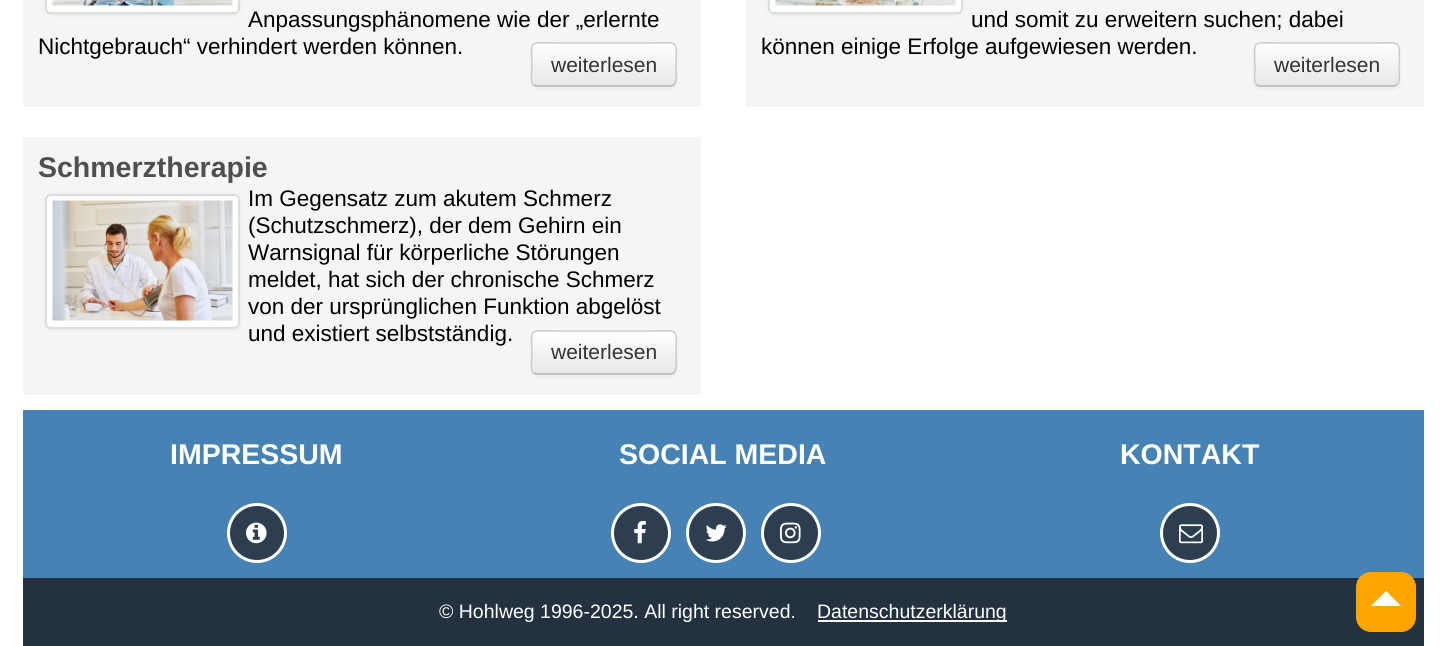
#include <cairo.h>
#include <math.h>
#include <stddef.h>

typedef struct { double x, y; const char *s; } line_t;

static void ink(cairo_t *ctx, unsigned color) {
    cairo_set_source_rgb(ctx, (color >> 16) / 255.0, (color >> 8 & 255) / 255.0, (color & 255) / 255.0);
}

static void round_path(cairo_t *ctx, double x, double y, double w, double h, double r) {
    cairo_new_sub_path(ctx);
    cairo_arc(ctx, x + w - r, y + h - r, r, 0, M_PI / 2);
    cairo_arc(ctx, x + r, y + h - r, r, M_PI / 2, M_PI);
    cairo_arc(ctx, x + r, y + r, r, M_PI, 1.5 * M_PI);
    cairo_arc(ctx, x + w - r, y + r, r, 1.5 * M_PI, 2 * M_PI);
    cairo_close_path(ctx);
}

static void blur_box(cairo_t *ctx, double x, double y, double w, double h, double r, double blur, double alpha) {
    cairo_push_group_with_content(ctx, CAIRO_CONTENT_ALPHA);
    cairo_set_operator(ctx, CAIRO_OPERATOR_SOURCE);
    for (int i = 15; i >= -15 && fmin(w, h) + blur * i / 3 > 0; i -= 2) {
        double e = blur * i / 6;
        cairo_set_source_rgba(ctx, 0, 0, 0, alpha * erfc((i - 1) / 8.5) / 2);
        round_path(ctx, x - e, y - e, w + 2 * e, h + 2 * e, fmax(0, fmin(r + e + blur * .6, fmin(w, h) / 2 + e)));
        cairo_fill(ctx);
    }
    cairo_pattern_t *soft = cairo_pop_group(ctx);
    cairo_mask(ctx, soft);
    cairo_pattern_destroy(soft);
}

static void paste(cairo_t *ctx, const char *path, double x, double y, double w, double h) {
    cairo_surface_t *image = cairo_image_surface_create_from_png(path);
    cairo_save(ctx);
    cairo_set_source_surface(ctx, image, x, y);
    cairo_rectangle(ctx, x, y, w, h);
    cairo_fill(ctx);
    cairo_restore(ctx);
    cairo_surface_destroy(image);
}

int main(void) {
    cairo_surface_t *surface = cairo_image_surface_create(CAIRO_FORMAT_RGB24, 1446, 646);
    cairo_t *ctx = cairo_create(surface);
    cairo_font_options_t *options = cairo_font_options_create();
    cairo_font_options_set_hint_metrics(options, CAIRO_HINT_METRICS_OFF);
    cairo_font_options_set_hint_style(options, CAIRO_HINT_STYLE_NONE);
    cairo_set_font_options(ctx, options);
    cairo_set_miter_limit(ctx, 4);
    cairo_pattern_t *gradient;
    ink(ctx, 0xFFFFFF);
    cairo_paint(ctx);
    ink(ctx, 0xF5F5F5);
    cairo_rectangle(ctx, 23, 0, 678, 107);
    cairo_fill(ctx);
    ink(ctx, 0x000000);
    blur_box(ctx, 45, -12, 195, 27, 6, 2, 0.06);
    ink(ctx, 0xFFFFFF);
    round_path(ctx, 46, -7, 193, 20, 5);
    cairo_fill_preserve(ctx);
    ink(ctx, 0xDDDDDD);
    cairo_stroke(ctx);
    paste(ctx, "media/1.png", 52, 0, 181, 6);
    cairo_select_font_face(ctx, "Liberation Sans", CAIRO_FONT_SLANT_NORMAL, CAIRO_FONT_WEIGHT_NORMAL);
    cairo_set_font_size(ctx, 22.5);
    ink(ctx, 0x000000);
    cairo_move_to(ctx, 248, 27);
    cairo_show_text(ctx, "Anpassungsphänomene wie der „erlernte");
    cairo_move_to(ctx, 38, 54);
    cairo_show_text(ctx, "Nichtgebrauch“ verhindert werden können.");
    ink(ctx, 0x000000);
    blur_box(ctx, 531, 44, 146, 45, 6, 1.5, 0.05);
    ink(ctx, 0xF5F5F5);
    round_path(ctx, 531, 42, 146, 45, 6);
    cairo_fill(ctx);
    cairo_save(ctx);
    round_path(ctx, 531, 42, 146, 45, 6);
    cairo_clip(ctx);
    gradient = cairo_pattern_create_linear(604, 43, 604, 86);
    cairo_pattern_add_color_stop_rgba(gradient, 0, 1, 1, 1, 1);
    cairo_pattern_add_color_stop_rgba(gradient, 1, 0.902, 0.902, 0.902, 1);
    cairo_set_source(ctx, gradient);
    cairo_pattern_destroy(gradient);
    cairo_rectangle(ctx, 531, 44, 146, 42);
    cairo_fill(ctx);
    cairo_restore(ctx);
    cairo_new_path(ctx);
    cairo_move_to(ctx, 674, 84.5);
    cairo_curve_to(ctx, 673, 85.5, 672, 86, 670.5, 86);
    cairo_line_to(ctx, 537, 86);
    cairo_curve_to(ctx, 535.5, 86, 534.5, 85.5, 533.5, 84.5);
    ink(ctx, 0xB3B3B3);
    cairo_set_line_width(ctx, 1.5);
    cairo_stroke(ctx);
    cairo_new_path(ctx);
    cairo_move_to(ctx, 533.5, 84.5);
    cairo_curve_to(ctx, 530, 81.5, 532, 73.5, 532, 70);
    cairo_curve_to(ctx, 532, 38, 526, 43, 559, 43);
    cairo_line_to(ctx, 648, 43);
    cairo_curve_to(ctx, 681.5, 43, 676, 38, 676, 70);
    cairo_curve_to(ctx, 676, 73.5, 677.5, 81.5, 674, 84.5);
    ink(ctx, 0xCCCCCC);
    cairo_stroke(ctx);
    cairo_set_font_size(ctx, 21);
    ink(ctx, 0x333333);
    cairo_move_to(ctx, 551, 72);
    cairo_show_text(ctx, "weiterlesen");
    ink(ctx, 0xF5F5F5);
    cairo_rectangle(ctx, 746, 0, 678, 107);
    cairo_fill(ctx);
    ink(ctx, 0x000000);
    blur_box(ctx, 768, -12, 195, 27, 6, 2, 0.06);
    ink(ctx, 0xFFFFFF);
    round_path(ctx, 769, -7, 193, 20, 5);
    cairo_fill_preserve(ctx);
    ink(ctx, 0xDDDDDD);
    cairo_set_line_width(ctx, 2);
    cairo_stroke(ctx);
    paste(ctx, "media/2.png", 775, 0, 181, 6);
    cairo_set_font_size(ctx, 22.5);
    ink(ctx, 0x000000);
    cairo_move_to(ctx, 971, 27);
    cairo_show_text(ctx, "und somit zu erweitern suchen; dabei");
    cairo_move_to(ctx, 761, 54);
    cairo_show_text(ctx, "können einige Erfolge aufgewiesen werden.");
    ink(ctx, 0x000000);
    blur_box(ctx, 1254, 44, 146, 45, 6, 1.5, 0.05);
    ink(ctx, 0xF5F5F5);
    round_path(ctx, 1254, 42, 146, 45, 6);
    cairo_fill(ctx);
    cairo_save(ctx);
    round_path(ctx, 1254, 42, 146, 45, 6);
    cairo_clip(ctx);
    gradient = cairo_pattern_create_linear(1327, 43, 1327, 86);
    cairo_pattern_add_color_stop_rgba(gradient, 0, 1, 1, 1, 1);
    cairo_pattern_add_color_stop_rgba(gradient, 1, 0.902, 0.902, 0.902, 1);
    cairo_set_source(ctx, gradient);
    cairo_pattern_destroy(gradient);
    cairo_rectangle(ctx, 1254, 44, 146, 42);
    cairo_fill(ctx);
    cairo_restore(ctx);
    cairo_new_path(ctx);
    cairo_move_to(ctx, 1397, 84.5);
    cairo_curve_to(ctx, 1396, 85.5, 1395, 86, 1393.5, 86);
    cairo_line_to(ctx, 1260, 86);
    cairo_curve_to(ctx, 1258.5, 86, 1257.5, 85.5, 1256.5, 84.5);
    ink(ctx, 0xB3B3B3);
    cairo_set_line_width(ctx, 1.5);
    cairo_stroke(ctx);
    cairo_new_path(ctx);
    cairo_move_to(ctx, 1256.5, 84.5);
    cairo_curve_to(ctx, 1253, 81.5, 1255, 73.5, 1255, 70);
    cairo_curve_to(ctx, 1255, 38, 1249, 43, 1282, 43);
    cairo_line_to(ctx, 1371, 43);
    cairo_curve_to(ctx, 1404.5, 43, 1399, 38, 1399, 70);
    cairo_curve_to(ctx, 1399, 73.5, 1400.5, 81.5, 1397, 84.5);
    ink(ctx, 0xCCCCCC);
    cairo_stroke(ctx);
    cairo_set_font_size(ctx, 21);
    ink(ctx, 0x333333);
    cairo_move_to(ctx, 1274, 72);
    cairo_show_text(ctx, "weiterlesen");
    ink(ctx, 0xF5F5F5);
    cairo_rectangle(ctx, 23, 137, 678, 258);
    cairo_fill(ctx);
    cairo_select_font_face(ctx, "Liberation Sans", CAIRO_FONT_SLANT_NORMAL, CAIRO_FONT_WEIGHT_BOLD);
    cairo_set_font_size(ctx, 28.5);
    ink(ctx, 0x4F4F4F);
    cairo_move_to(ctx, 38, 177);
    cairo_show_text(ctx, "Schmerztherapie");
    ink(ctx, 0x000000);
    blur_box(ctx, 45, 195, 195, 135, 6, 2, 0.06);
    ink(ctx, 0xFFFFFF);
    round_path(ctx, 46, 195, 193, 133, 5);
    cairo_fill_preserve(ctx);
    ink(ctx, 0xDDDDDD);
    cairo_set_line_width(ctx, 2);
    cairo_stroke(ctx);
    paste(ctx, "media/3.png", 52, 200, 181, 121);
    cairo_select_font_face(ctx, "Liberation Sans", CAIRO_FONT_SLANT_NORMAL, CAIRO_FONT_WEIGHT_NORMAL);
    cairo_set_font_size(ctx, 22.5);
    ink(ctx, 0x000000);
    {
        static const line_t items[] = {
            {248, 206, "Im Gegensatz zum akutem Schmerz"},
            {248, 233, "(Schutzschmerz), der dem Gehirn ein"},
            {248, 260, "Warnsignal für körperliche Störungen"},
            {248, 287, "meldet, hat sich der chronische Schmerz"},
            {248, 314, "von der ursprünglichen Funktion abgelöst"},
            {248, 341, "und existiert selbstständig."},
        };
        for (size_t i = 0; i < sizeof items / sizeof *items; i++) {
            cairo_move_to(ctx, items[i].x, items[i].y);
            cairo_show_text(ctx, items[i].s);
        }
    }
    ink(ctx, 0x000000);
    blur_box(ctx, 531, 332, 146, 45, 6, 1.5, 0.05);
    ink(ctx, 0xF5F5F5);
    round_path(ctx, 531, 330, 146, 45, 6);
    cairo_fill(ctx);
    cairo_save(ctx);
    round_path(ctx, 531, 330, 146, 45, 6);
    cairo_clip(ctx);
    gradient = cairo_pattern_create_linear(604, 332, 604, 374);
    cairo_pattern_add_color_stop_rgba(gradient, 0, 1, 1, 1, 1);
    cairo_pattern_add_color_stop_rgba(gradient, 1, 0.902, 0.902, 0.902, 1);
    cairo_set_source(ctx, gradient);
    cairo_pattern_destroy(gradient);
    cairo_rectangle(ctx, 531, 332, 146, 42);
    cairo_fill(ctx);
    cairo_restore(ctx);
    cairo_new_path(ctx);
    cairo_move_to(ctx, 674, 372.5);
    cairo_curve_to(ctx, 673, 373.5, 672, 374, 670.5, 374);
    cairo_line_to(ctx, 537, 374);
    cairo_curve_to(ctx, 535.5, 374, 534.5, 373.5, 533.5, 372.5);
    ink(ctx, 0xB3B3B3);
    cairo_set_line_width(ctx, 1.5);
    cairo_stroke(ctx);
    cairo_new_path(ctx);
    cairo_move_to(ctx, 533.5, 372.5);
    cairo_curve_to(ctx, 530, 369.5, 532, 361.5, 532, 358);
    cairo_curve_to(ctx, 532, 326, 526, 331, 559, 331);
    cairo_line_to(ctx, 648, 331);
    cairo_curve_to(ctx, 681.5, 331, 676, 326, 676, 358);
    cairo_curve_to(ctx, 676, 361.5, 677.5, 369.5, 674, 372.5);
    ink(ctx, 0xCCCCCC);
    cairo_stroke(ctx);
    cairo_set_font_size(ctx, 21);
    ink(ctx, 0x333333);
    cairo_move_to(ctx, 551, 359);
    cairo_show_text(ctx, "weiterlesen");
    ink(ctx, 0x4682B4);
    cairo_rectangle(ctx, 23, 410, 1401, 168);
    cairo_fill(ctx);
    cairo_select_font_face(ctx, "Liberation Sans", CAIRO_FONT_SLANT_NORMAL, CAIRO_FONT_WEIGHT_BOLD);
    cairo_set_font_size(ctx, 28.5);
    ink(ctx, 0xFFFFFF);
    cairo_move_to(ctx, 170, 464);
    cairo_show_text(ctx, "IMPRESSUM");
    ink(ctx, 0x2C3E50);
    cairo_new_path(ctx);
    cairo_arc(ctx, 257, 533, 28.5, 0, 2 * M_PI);
    cairo_fill_preserve(ctx);
    ink(ctx, 0xFFFFFF);
    cairo_set_line_width(ctx, 3);
    cairo_stroke(ctx);
    paste(ctx, "media/4.png", 246, 522, 21, 22);
    cairo_move_to(ctx, 619, 464);
    cairo_show_text(ctx, "SOCIAL MEDIA");
    ink(ctx, 0x2C3E50);
    cairo_new_path(ctx);
    cairo_arc(ctx, 641, 533, 28.5, 0, 2 * M_PI);
    cairo_fill_preserve(ctx);
    ink(ctx, 0xFFFFFF);
    cairo_stroke(ctx);
    paste(ctx, "media/5.png", 634, 520, 12, 24);
    ink(ctx, 0x2C3E50);
    cairo_arc(ctx, 716, 533, 28.5, 0, 2 * M_PI);
    cairo_fill_preserve(ctx);
    ink(ctx, 0xFFFFFF);
    cairo_stroke(ctx);
    paste(ctx, "media/6.png", 705, 524, 22, 18);
    ink(ctx, 0x2C3E50);
    cairo_arc(ctx, 791, 533, 28.5, 0, 2 * M_PI);
    cairo_fill_preserve(ctx);
    ink(ctx, 0xFFFFFF);
    cairo_stroke(ctx);
    paste(ctx, "media/7.png", 780, 522, 21, 22);
    cairo_move_to(ctx, 1120, 464);
    cairo_show_text(ctx, "KONTAKT");
    ink(ctx, 0x2C3E50);
    cairo_new_path(ctx);
    cairo_arc(ctx, 1190, 533, 28.5, 0, 2 * M_PI);
    cairo_fill_preserve(ctx);
    ink(ctx, 0xFFFFFF);
    cairo_stroke(ctx);
    paste(ctx, "media/8.png", 1179, 524, 24, 20);
    ink(ctx, 0x233140);
    cairo_rectangle(ctx, 23, 578, 1401, 68);
    cairo_fill(ctx);
    cairo_select_font_face(ctx, "Liberation Sans", CAIRO_FONT_SLANT_NORMAL, CAIRO_FONT_WEIGHT_NORMAL);
    cairo_set_font_size(ctx, 19.5);
    ink(ctx, 0xFFFFFF);
    cairo_move_to(ctx, 439, 618);
    cairo_show_text(ctx, "© Hohlweg 1996-2025. All right reserved.");
    cairo_rectangle(ctx, 818, 620, 189, 2);
    cairo_fill(ctx);
    cairo_move_to(ctx, 817, 618);
    cairo_show_text(ctx, "Datenschutzerklärung");
    ink(ctx, 0xFFA500);
    round_path(ctx, 1356, 572, 60, 60, 15);
    cairo_fill(ctx);
    ink(ctx, 0xFFFFFF);
    cairo_new_path(ctx);
    cairo_move_to(ctx, 1401, 606);
    cairo_line_to(ctx, 1371, 606);
    cairo_line_to(ctx, 1386, 591);
    cairo_close_path(ctx);
    cairo_fill(ctx);
    cairo_surface_write_to_png(surface, "image.png");
    cairo_font_options_destroy(options);
    cairo_destroy(ctx);
    cairo_surface_destroy(surface);
    return 0;
}
